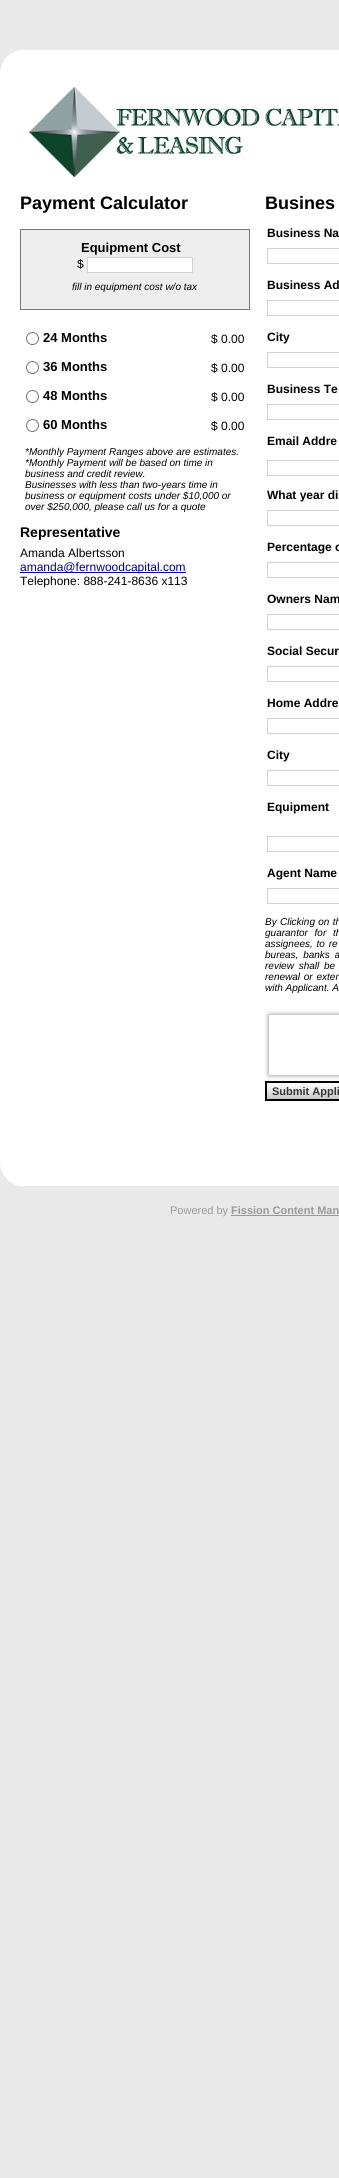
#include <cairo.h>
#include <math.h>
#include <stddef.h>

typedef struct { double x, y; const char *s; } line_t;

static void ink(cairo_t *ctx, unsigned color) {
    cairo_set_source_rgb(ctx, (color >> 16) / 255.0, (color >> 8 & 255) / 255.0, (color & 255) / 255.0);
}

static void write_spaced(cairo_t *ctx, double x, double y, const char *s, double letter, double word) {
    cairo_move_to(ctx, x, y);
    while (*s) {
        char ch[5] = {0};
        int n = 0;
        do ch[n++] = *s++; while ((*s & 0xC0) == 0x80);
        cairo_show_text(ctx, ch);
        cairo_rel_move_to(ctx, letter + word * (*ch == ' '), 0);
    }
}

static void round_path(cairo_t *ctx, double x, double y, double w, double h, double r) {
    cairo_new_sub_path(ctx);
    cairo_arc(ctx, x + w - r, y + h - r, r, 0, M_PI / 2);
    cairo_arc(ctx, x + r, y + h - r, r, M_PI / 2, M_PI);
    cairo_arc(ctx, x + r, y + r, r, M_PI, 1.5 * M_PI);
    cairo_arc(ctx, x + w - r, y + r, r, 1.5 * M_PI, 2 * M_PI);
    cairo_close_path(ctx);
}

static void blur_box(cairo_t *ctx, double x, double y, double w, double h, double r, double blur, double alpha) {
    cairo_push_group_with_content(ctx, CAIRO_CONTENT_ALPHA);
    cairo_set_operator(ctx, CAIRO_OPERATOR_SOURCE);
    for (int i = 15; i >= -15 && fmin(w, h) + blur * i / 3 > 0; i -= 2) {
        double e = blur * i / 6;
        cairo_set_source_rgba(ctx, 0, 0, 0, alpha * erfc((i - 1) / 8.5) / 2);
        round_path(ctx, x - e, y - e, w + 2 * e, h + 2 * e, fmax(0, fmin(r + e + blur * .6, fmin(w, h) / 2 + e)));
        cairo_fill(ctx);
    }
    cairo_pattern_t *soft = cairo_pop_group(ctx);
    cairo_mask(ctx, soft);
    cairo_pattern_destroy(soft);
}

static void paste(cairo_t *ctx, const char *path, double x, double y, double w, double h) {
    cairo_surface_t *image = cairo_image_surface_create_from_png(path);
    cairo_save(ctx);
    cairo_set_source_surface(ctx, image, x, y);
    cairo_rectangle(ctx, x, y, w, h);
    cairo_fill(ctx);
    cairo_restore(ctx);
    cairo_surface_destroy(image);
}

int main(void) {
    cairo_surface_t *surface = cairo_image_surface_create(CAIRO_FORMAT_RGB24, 339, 2178);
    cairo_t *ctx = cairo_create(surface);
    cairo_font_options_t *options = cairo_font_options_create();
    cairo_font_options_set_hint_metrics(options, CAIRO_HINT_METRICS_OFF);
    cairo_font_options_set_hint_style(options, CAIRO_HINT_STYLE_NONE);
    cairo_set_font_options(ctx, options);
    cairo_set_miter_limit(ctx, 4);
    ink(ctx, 0xE9E9E9);
    cairo_paint(ctx);
    paste(ctx, "media/1.png", 0, 50, 20, 23);
    ink(ctx, 0xFFFFFF);
    cairo_rectangle(ctx, 20, 50, 319, 23);
    cairo_fill(ctx);
    cairo_rectangle(ctx, 0, 73, 339, 1090);
    cairo_fill(ctx);
    paste(ctx, "media/2.png", 25, 87, 314, 90);
    cairo_select_font_face(ctx, "Liberation Sans", CAIRO_FONT_SLANT_NORMAL, CAIRO_FONT_WEIGHT_BOLD);
    cairo_set_font_size(ctx, 18);
    ink(ctx, 0x000000);
    cairo_move_to(ctx, 20, 209);
    cairo_show_text(ctx, "Payment Calculator");
    ink(ctx, 0xEEEEEE);
    cairo_rectangle(ctx, 20.5, 229.5, 229, 80);
    cairo_fill_preserve(ctx);
    ink(ctx, 0x777777);
    cairo_set_line_width(ctx, 1);
    cairo_stroke(ctx);
    cairo_set_font_size(ctx, 13);
    ink(ctx, 0x000000);
    cairo_move_to(ctx, 81, 252);
    cairo_show_text(ctx, "Equipment Cost");
    cairo_select_font_face(ctx, "Liberation Sans", CAIRO_FONT_SLANT_NORMAL, CAIRO_FONT_WEIGHT_NORMAL);
    cairo_set_font_size(ctx, 12);
    cairo_move_to(ctx, 77, 268);
    cairo_show_text(ctx, "$");
    ink(ctx, 0xFFFFFF);
    cairo_rectangle(ctx, 87.5, 257.5, 105, 15);
    cairo_fill_preserve(ctx);
    ink(ctx, 0xD2D2D2);
    cairo_stroke(ctx);
    cairo_select_font_face(ctx, "Liberation Sans", CAIRO_FONT_SLANT_ITALIC, CAIRO_FONT_WEIGHT_NORMAL);
    cairo_set_font_size(ctx, 10);
    ink(ctx, 0x000000);
    cairo_move_to(ctx, 72, 290);
    cairo_show_text(ctx, "fill in equipment cost w/o tax");
    cairo_new_path(ctx);
    cairo_arc(ctx, 32.5, 338.5, 6, 0, 2 * M_PI);
    ink(ctx, 0x767676);
    cairo_stroke(ctx);
    cairo_select_font_face(ctx, "Liberation Sans", CAIRO_FONT_SLANT_NORMAL, CAIRO_FONT_WEIGHT_BOLD);
    cairo_set_font_size(ctx, 13);
    ink(ctx, 0x000000);
    cairo_move_to(ctx, 43, 342);
    cairo_show_text(ctx, "24 Months");
    cairo_select_font_face(ctx, "Liberation Sans", CAIRO_FONT_SLANT_NORMAL, CAIRO_FONT_WEIGHT_NORMAL);
    cairo_set_font_size(ctx, 12);
    cairo_move_to(ctx, 211, 343);
    cairo_show_text(ctx, "$ 0.00");
    cairo_new_path(ctx);
    cairo_arc(ctx, 32.5, 367.5, 6, 0, 2 * M_PI);
    ink(ctx, 0x767676);
    cairo_stroke(ctx);
    cairo_select_font_face(ctx, "Liberation Sans", CAIRO_FONT_SLANT_NORMAL, CAIRO_FONT_WEIGHT_BOLD);
    cairo_set_font_size(ctx, 13);
    ink(ctx, 0x000000);
    cairo_move_to(ctx, 43, 371);
    cairo_show_text(ctx, "36 Months");
    cairo_select_font_face(ctx, "Liberation Sans", CAIRO_FONT_SLANT_NORMAL, CAIRO_FONT_WEIGHT_NORMAL);
    cairo_set_font_size(ctx, 12);
    cairo_move_to(ctx, 211, 372);
    cairo_show_text(ctx, "$ 0.00");
    cairo_new_path(ctx);
    cairo_arc(ctx, 32.5, 396.5, 6, 0, 2 * M_PI);
    ink(ctx, 0x767676);
    cairo_stroke(ctx);
    cairo_select_font_face(ctx, "Liberation Sans", CAIRO_FONT_SLANT_NORMAL, CAIRO_FONT_WEIGHT_BOLD);
    cairo_set_font_size(ctx, 13);
    ink(ctx, 0x000000);
    cairo_move_to(ctx, 43, 400);
    cairo_show_text(ctx, "48 Months");
    cairo_select_font_face(ctx, "Liberation Sans", CAIRO_FONT_SLANT_NORMAL, CAIRO_FONT_WEIGHT_NORMAL);
    cairo_set_font_size(ctx, 12);
    cairo_move_to(ctx, 211, 401);
    cairo_show_text(ctx, "$ 0.00");
    cairo_new_path(ctx);
    cairo_arc(ctx, 32.5, 425.5, 6, 0, 2 * M_PI);
    ink(ctx, 0x767676);
    cairo_stroke(ctx);
    cairo_select_font_face(ctx, "Liberation Sans", CAIRO_FONT_SLANT_NORMAL, CAIRO_FONT_WEIGHT_BOLD);
    cairo_set_font_size(ctx, 13);
    ink(ctx, 0x000000);
    cairo_move_to(ctx, 43, 429);
    cairo_show_text(ctx, "60 Months");
    cairo_select_font_face(ctx, "Liberation Sans", CAIRO_FONT_SLANT_NORMAL, CAIRO_FONT_WEIGHT_NORMAL);
    cairo_set_font_size(ctx, 12);
    cairo_move_to(ctx, 211, 430);
    cairo_show_text(ctx, "$ 0.00");
    cairo_select_font_face(ctx, "Liberation Sans", CAIRO_FONT_SLANT_ITALIC, CAIRO_FONT_WEIGHT_NORMAL);
    cairo_set_font_size(ctx, 10);
    {
        static const line_t items[] = {
            {25, 455, "*Monthly Payment Ranges above are estimates."},
            {25, 466, "*Monthly Payment will be based on time in"},
            {25, 477, "business and credit review."},
            {25, 488, "Businesses with less than two-years time in"},
            {25, 499, "business or equipment costs under $10,000 or"},
            {25, 510, "over $250,000, please call us for a quote"},
        };
        for (size_t i = 0; i < sizeof items / sizeof *items; i++) {
            cairo_move_to(ctx, items[i].x, items[i].y);
            cairo_show_text(ctx, items[i].s);
        }
    }
    cairo_select_font_face(ctx, "Liberation Sans", CAIRO_FONT_SLANT_NORMAL, CAIRO_FONT_WEIGHT_BOLD);
    cairo_set_font_size(ctx, 14);
    cairo_move_to(ctx, 20, 537);
    cairo_show_text(ctx, "Representative");
    cairo_select_font_face(ctx, "Liberation Sans", CAIRO_FONT_SLANT_NORMAL, CAIRO_FONT_WEIGHT_NORMAL);
    cairo_set_font_size(ctx, 12);
    cairo_move_to(ctx, 20, 557);
    cairo_show_text(ctx, "Amanda Albertsson");
    ink(ctx, 0x000099);
    cairo_rectangle(ctx, 20, 572, 166, 1);
    cairo_fill(ctx);
    cairo_move_to(ctx, 20, 571);
    cairo_show_text(ctx, "amanda@fernwoodcapital.com");
    ink(ctx, 0x000000);
    cairo_move_to(ctx, 20, 585);
    cairo_show_text(ctx, "Telephone: 888-241-8636 x113");
    cairo_select_font_face(ctx, "Liberation Sans", CAIRO_FONT_SLANT_NORMAL, CAIRO_FONT_WEIGHT_BOLD);
    cairo_set_font_size(ctx, 18);
    cairo_move_to(ctx, 265, 209);
    cairo_show_text(ctx, "Busines");
    cairo_set_font_size(ctx, 12);
    cairo_move_to(ctx, 267, 237);
    cairo_show_text(ctx, "Business Na");
    cairo_rectangle(ctx, 267.5, 248.5, 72, 15);
    ink(ctx, 0xD2D2D2);
    cairo_stroke(ctx);
    ink(ctx, 0x000000);
    cairo_move_to(ctx, 267, 289);
    cairo_show_text(ctx, "Business Ad");
    cairo_rectangle(ctx, 267.5, 300.5, 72, 15);
    ink(ctx, 0xD2D2D2);
    cairo_stroke(ctx);
    ink(ctx, 0x000000);
    cairo_move_to(ctx, 267, 341);
    cairo_show_text(ctx, "City");
    cairo_rectangle(ctx, 267.5, 352.5, 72, 15);
    ink(ctx, 0xD2D2D2);
    cairo_stroke(ctx);
    ink(ctx, 0x000000);
    cairo_move_to(ctx, 267, 393);
    cairo_show_text(ctx, "Business Te");
    cairo_rectangle(ctx, 267.5, 404.5, 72, 15);
    ink(ctx, 0xD2D2D2);
    cairo_stroke(ctx);
    ink(ctx, 0x000000);
    cairo_move_to(ctx, 267, 445);
    cairo_show_text(ctx, "Email Addre");
    cairo_rectangle(ctx, 267.5, 460.5, 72, 15);
    ink(ctx, 0xD2D2D2);
    cairo_stroke(ctx);
    ink(ctx, 0x000000);
    cairo_move_to(ctx, 267, 499);
    cairo_show_text(ctx, "What year di");
    cairo_rectangle(ctx, 267.5, 510.5, 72, 15);
    ink(ctx, 0xD2D2D2);
    cairo_stroke(ctx);
    ink(ctx, 0x000000);
    cairo_move_to(ctx, 267, 551);
    cairo_show_text(ctx, "Percentage o");
    cairo_rectangle(ctx, 267.5, 562.5, 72, 15);
    ink(ctx, 0xD2D2D2);
    cairo_stroke(ctx);
    ink(ctx, 0x000000);
    cairo_move_to(ctx, 267, 603);
    cairo_show_text(ctx, "Owners Nam");
    cairo_rectangle(ctx, 267.5, 614.5, 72, 15);
    ink(ctx, 0xD2D2D2);
    cairo_stroke(ctx);
    ink(ctx, 0x000000);
    cairo_move_to(ctx, 267, 655);
    cairo_show_text(ctx, "Social Secur");
    cairo_rectangle(ctx, 267.5, 666.5, 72, 15);
    ink(ctx, 0xD2D2D2);
    cairo_stroke(ctx);
    ink(ctx, 0x000000);
    cairo_move_to(ctx, 267, 707);
    cairo_show_text(ctx, "Home Addre");
    cairo_rectangle(ctx, 267.5, 718.5, 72, 15);
    ink(ctx, 0xD2D2D2);
    cairo_stroke(ctx);
    ink(ctx, 0x000000);
    cairo_move_to(ctx, 267, 759);
    cairo_show_text(ctx, "City");
    cairo_rectangle(ctx, 267.5, 770.5, 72, 15);
    ink(ctx, 0xD2D2D2);
    cairo_stroke(ctx);
    ink(ctx, 0x000000);
    cairo_move_to(ctx, 267, 811);
    cairo_show_text(ctx, "Equipment");
    cairo_rectangle(ctx, 267.5, 836.5, 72, 15);
    ink(ctx, 0xD2D2D2);
    cairo_stroke(ctx);
    ink(ctx, 0x000000);
    cairo_move_to(ctx, 267, 877);
    cairo_show_text(ctx, "Agent Name");
    cairo_rectangle(ctx, 267.5, 888.5, 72, 15);
    ink(ctx, 0xD2D2D2);
    cairo_stroke(ctx);
    cairo_select_font_face(ctx, "Liberation Sans", CAIRO_FONT_SLANT_ITALIC, CAIRO_FONT_WEIGHT_NORMAL);
    cairo_set_font_size(ctx, 10);
    ink(ctx, 0x000000);
    write_spaced(ctx, 265, 925, "By Clicking on th", 0, 0.5);
    write_spaced(ctx, 265, 936, "guarantor for th", 0, 4);
    write_spaced(ctx, 265, 947, "assignees, to re", 0, 1);
    write_spaced(ctx, 265, 958, "bureas, banks a", 0, 2);
    write_spaced(ctx, 265, 969, "review shall be", 0, 2);
    write_spaced(ctx, 265, 980, "renewal or exten", 0, 1);
    cairo_move_to(ctx, 265, 991);
    cairo_show_text(ctx, "with Applicant. A");
    cairo_save(ctx);
    cairo_set_fill_rule(ctx, CAIRO_FILL_RULE_EVEN_ODD);
    cairo_new_path(ctx);
    cairo_move_to(ctx, 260, 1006);
    cairo_line_to(ctx, 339, 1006);
    cairo_line_to(ctx, 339, 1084);
    cairo_line_to(ctx, 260, 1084);
    cairo_close_path(ctx);
    cairo_move_to(ctx, 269, 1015);
    cairo_line_to(ctx, 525, 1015);
    cairo_line_to(ctx, 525, 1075);
    cairo_line_to(ctx, 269, 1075);
    cairo_close_path(ctx);
    cairo_clip(ctx);
    ink(ctx, 0x808080);
    blur_box(ctx, 269, 1015, 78, 60, 0, 2.5, 1);
    cairo_restore(ctx);
    paste(ctx, "media/3.png", 267, 1083, 72, 16);
    cairo_rectangle(ctx, 266, 1082, 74, 18);
    cairo_set_line_width(ctx, 2);
    cairo_stroke(ctx);
    cairo_select_font_face(ctx, "Liberation Sans", CAIRO_FONT_SLANT_NORMAL, CAIRO_FONT_WEIGHT_BOLD);
    cairo_set_font_size(ctx, 11);
    ink(ctx, 0x333333);
    cairo_move_to(ctx, 272, 1095);
    cairo_show_text(ctx, "Submit Appli");
    paste(ctx, "media/4.png", 0, 1163, 20, 23);
    ink(ctx, 0xFFFFFF);
    cairo_rectangle(ctx, 20, 1163, 319, 23);
    cairo_fill(ctx);
    cairo_select_font_face(ctx, "Liberation Sans", CAIRO_FONT_SLANT_NORMAL, CAIRO_FONT_WEIGHT_NORMAL);
    ink(ctx, 0x999999);
    cairo_move_to(ctx, 170, 1214);
    cairo_show_text(ctx, "Powered by");
    cairo_rectangle(ctx, 231, 1215, 108, 1);
    cairo_fill(ctx);
    cairo_select_font_face(ctx, "Liberation Sans", CAIRO_FONT_SLANT_NORMAL, CAIRO_FONT_WEIGHT_BOLD);
    cairo_move_to(ctx, 231, 1214);
    cairo_show_text(ctx, "Fission Content Man");
    cairo_surface_write_to_png(surface, "image.png");
    cairo_font_options_destroy(options);
    cairo_destroy(ctx);
    cairo_surface_destroy(surface);
    return 0;
}
